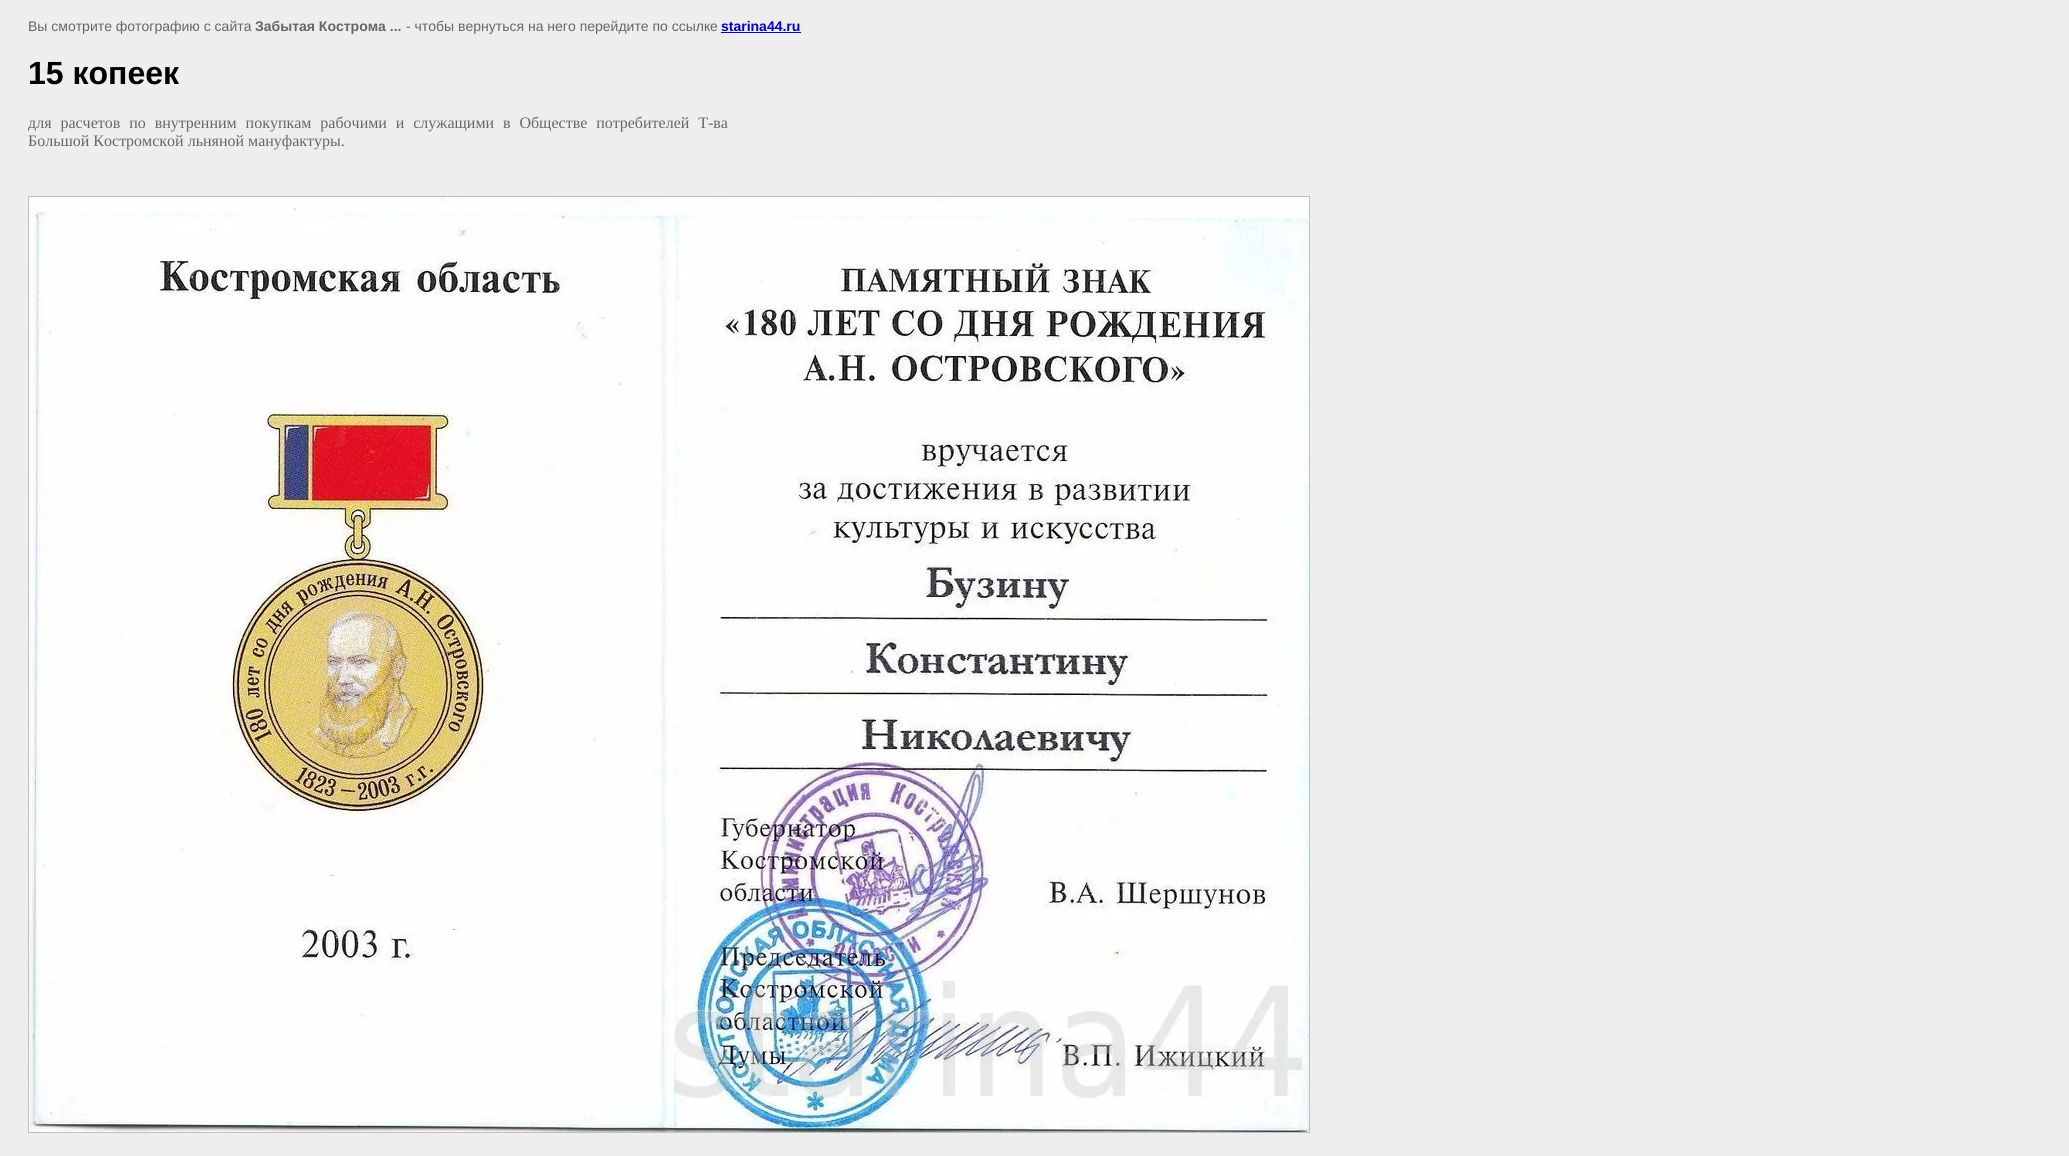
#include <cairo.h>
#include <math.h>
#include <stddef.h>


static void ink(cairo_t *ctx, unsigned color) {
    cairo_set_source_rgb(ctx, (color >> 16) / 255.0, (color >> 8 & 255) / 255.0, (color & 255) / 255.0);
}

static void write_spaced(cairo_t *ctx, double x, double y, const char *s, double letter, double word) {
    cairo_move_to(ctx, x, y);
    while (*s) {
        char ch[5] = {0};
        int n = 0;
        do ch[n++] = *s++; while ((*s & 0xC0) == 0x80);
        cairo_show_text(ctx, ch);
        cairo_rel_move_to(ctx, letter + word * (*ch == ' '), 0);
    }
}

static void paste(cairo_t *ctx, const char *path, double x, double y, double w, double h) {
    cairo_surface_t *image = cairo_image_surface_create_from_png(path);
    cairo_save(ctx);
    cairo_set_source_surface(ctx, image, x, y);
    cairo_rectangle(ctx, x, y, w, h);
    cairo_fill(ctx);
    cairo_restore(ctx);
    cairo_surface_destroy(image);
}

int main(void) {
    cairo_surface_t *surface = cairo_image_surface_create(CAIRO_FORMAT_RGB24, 2069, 1156);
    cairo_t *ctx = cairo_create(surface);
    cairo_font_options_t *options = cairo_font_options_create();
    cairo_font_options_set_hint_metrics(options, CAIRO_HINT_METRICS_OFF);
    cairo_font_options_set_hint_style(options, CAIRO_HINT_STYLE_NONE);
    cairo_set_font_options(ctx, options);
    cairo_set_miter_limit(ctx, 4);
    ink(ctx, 0xEEEEEE);
    cairo_paint(ctx);
    cairo_select_font_face(ctx, "Liberation Sans", CAIRO_FONT_SLANT_NORMAL, CAIRO_FONT_WEIGHT_NORMAL);
    cairo_set_font_size(ctx, 14);
    ink(ctx, 0x666666);
    cairo_move_to(ctx, 28, 31);
    cairo_show_text(ctx, "Вы смотрите фотографию с сайта");
    cairo_select_font_face(ctx, "Liberation Sans", CAIRO_FONT_SLANT_NORMAL, CAIRO_FONT_WEIGHT_BOLD);
    cairo_move_to(ctx, 255, 31);
    cairo_show_text(ctx, "Забытая Кострома ...");
    cairo_select_font_face(ctx, "Liberation Sans", CAIRO_FONT_SLANT_NORMAL, CAIRO_FONT_WEIGHT_NORMAL);
    cairo_move_to(ctx, 406, 31);
    cairo_show_text(ctx, "- чтобы вернуться на него перейдите по ссылке");
    cairo_select_font_face(ctx, "Liberation Sans", CAIRO_FONT_SLANT_NORMAL, CAIRO_FONT_WEIGHT_BOLD);
    ink(ctx, 0x0000CC);
    cairo_move_to(ctx, 721, 31);
    cairo_show_text(ctx, "starina44.ru");
    cairo_rectangle(ctx, 721, 32, 80, 1);
    cairo_fill(ctx);
    cairo_set_font_size(ctx, 32);
    ink(ctx, 0x000000);
    cairo_move_to(ctx, 28, 84);
    cairo_show_text(ctx, "15 копеек");
    cairo_select_font_face(ctx, "Liberation Serif", CAIRO_FONT_SLANT_NORMAL, CAIRO_FONT_WEIGHT_NORMAL);
    cairo_set_font_size(ctx, 16);
    ink(ctx, 0x666666);
    write_spaced(ctx, 28, 128, "для расчетов по внутренним покупкам рабочими и служащими в Обществе потребителей Т-ва", 0, 4.9);
    cairo_move_to(ctx, 28, 146);
    cairo_show_text(ctx, "Большой Костромской льняной мануфактуры.");
    cairo_rectangle(ctx, 28.5, 196.5, 1281, 936);
    ink(ctx, 0xC0C0C0);
    cairo_set_line_width(ctx, 1);
    cairo_stroke(ctx);
    paste(ctx, "media/1.png", 29, 197, 1280, 935);
    cairo_surface_write_to_png(surface, "image.png");
    cairo_font_options_destroy(options);
    cairo_destroy(ctx);
    cairo_surface_destroy(surface);
    return 0;
}
